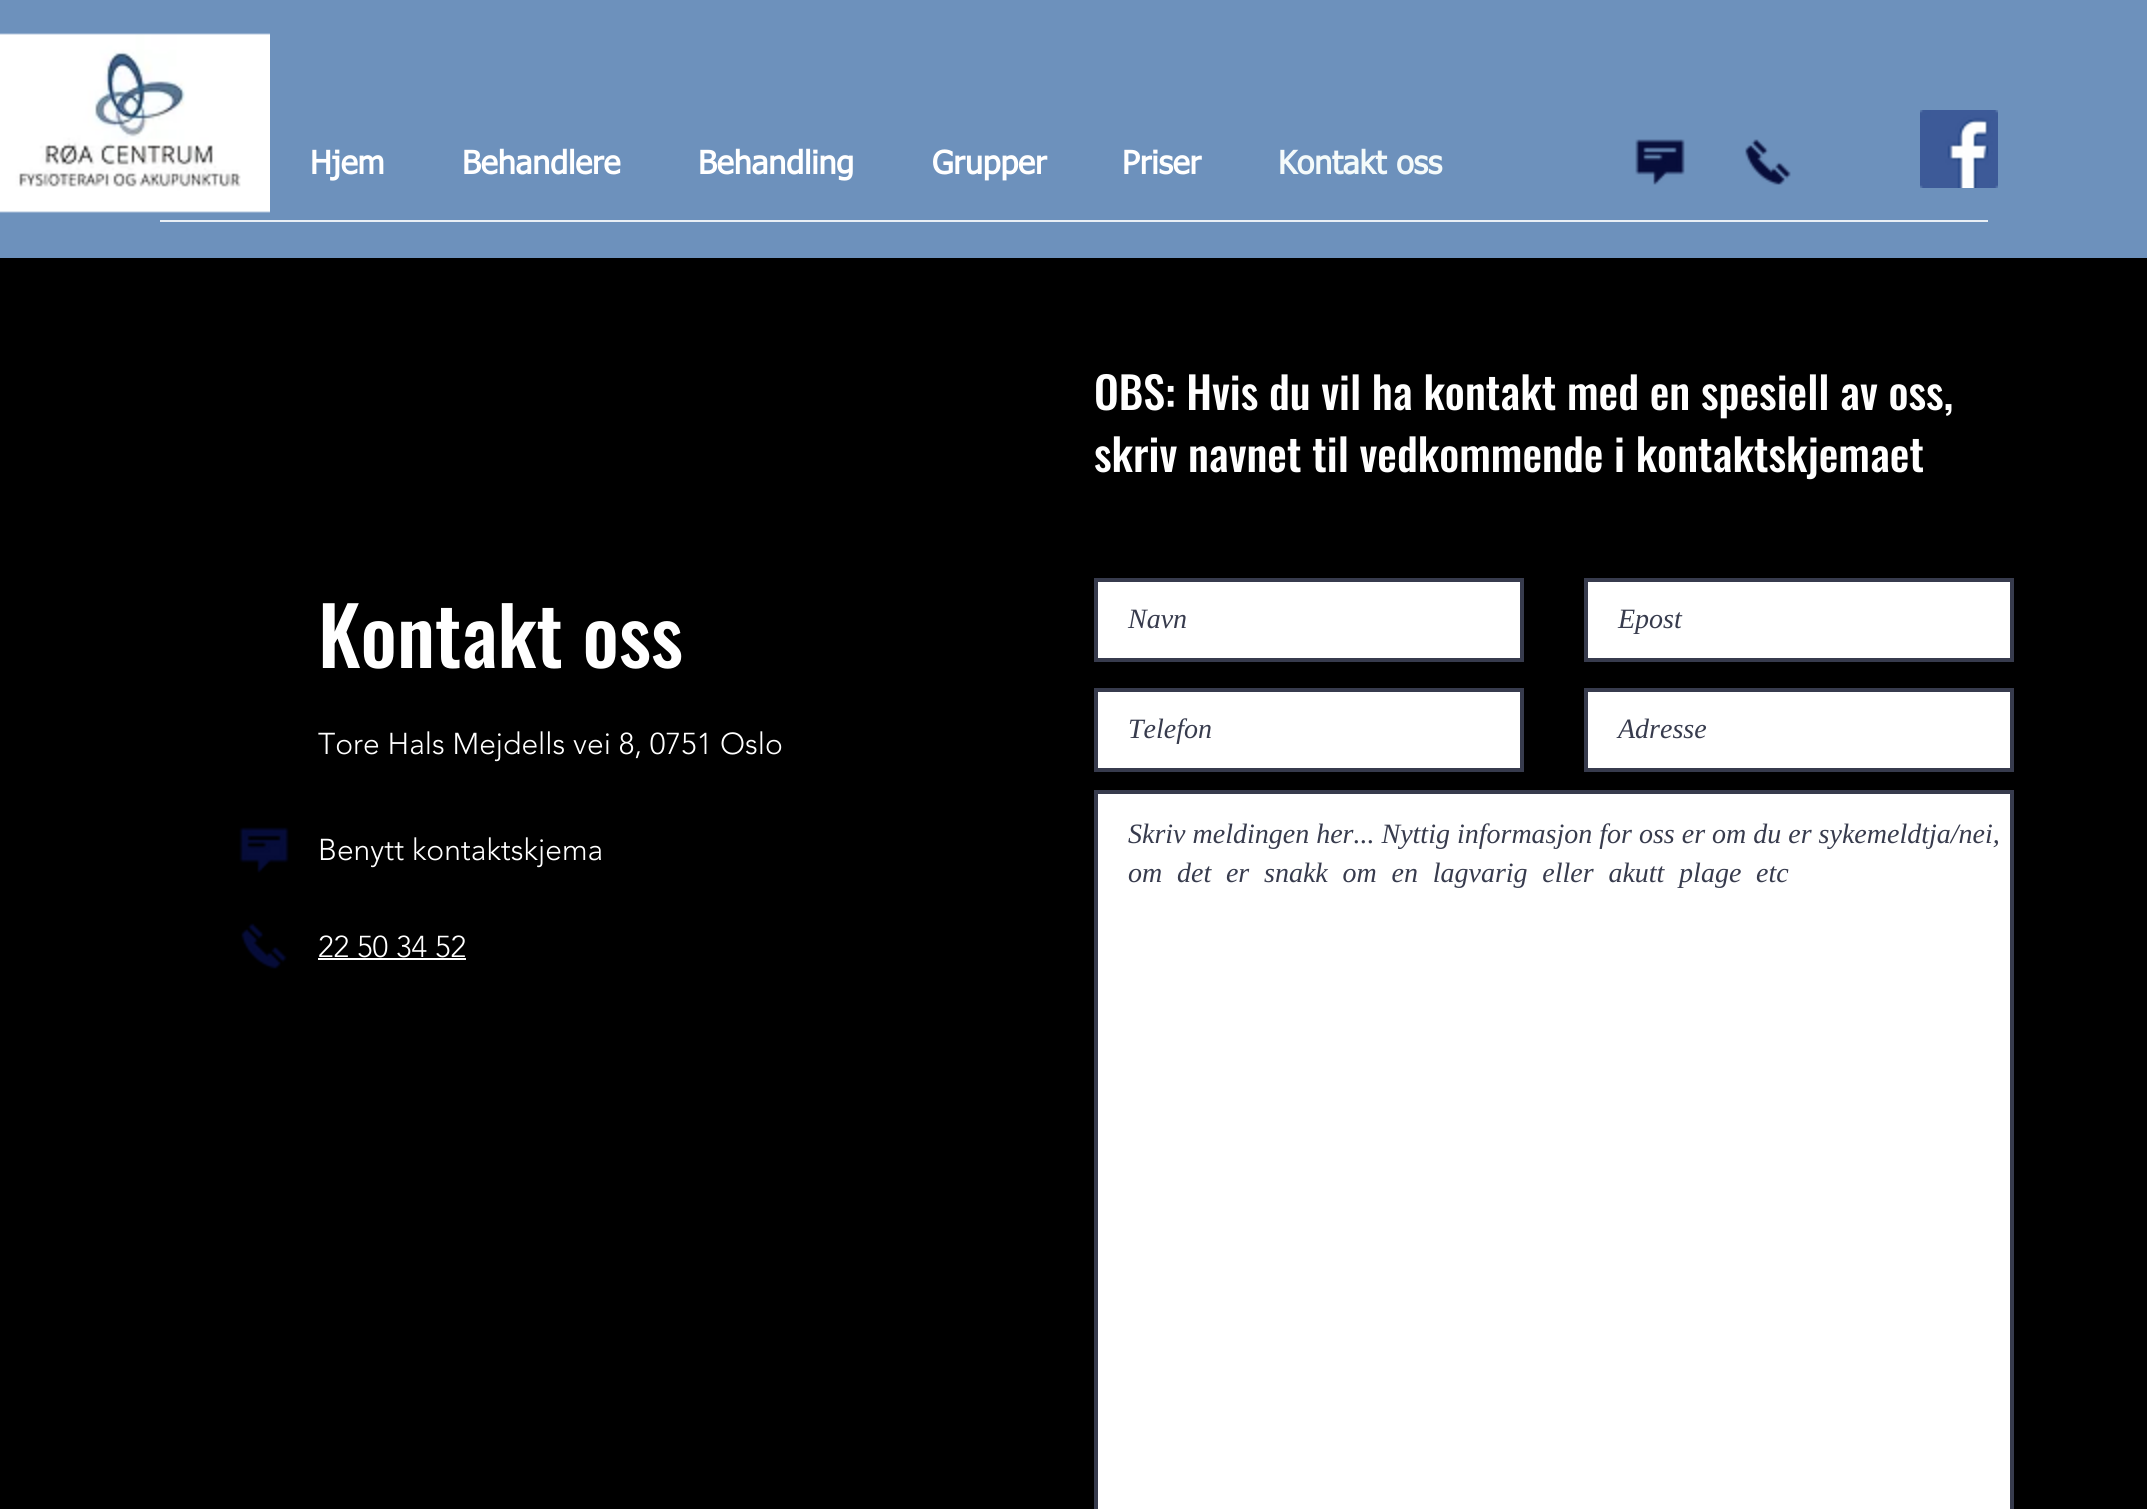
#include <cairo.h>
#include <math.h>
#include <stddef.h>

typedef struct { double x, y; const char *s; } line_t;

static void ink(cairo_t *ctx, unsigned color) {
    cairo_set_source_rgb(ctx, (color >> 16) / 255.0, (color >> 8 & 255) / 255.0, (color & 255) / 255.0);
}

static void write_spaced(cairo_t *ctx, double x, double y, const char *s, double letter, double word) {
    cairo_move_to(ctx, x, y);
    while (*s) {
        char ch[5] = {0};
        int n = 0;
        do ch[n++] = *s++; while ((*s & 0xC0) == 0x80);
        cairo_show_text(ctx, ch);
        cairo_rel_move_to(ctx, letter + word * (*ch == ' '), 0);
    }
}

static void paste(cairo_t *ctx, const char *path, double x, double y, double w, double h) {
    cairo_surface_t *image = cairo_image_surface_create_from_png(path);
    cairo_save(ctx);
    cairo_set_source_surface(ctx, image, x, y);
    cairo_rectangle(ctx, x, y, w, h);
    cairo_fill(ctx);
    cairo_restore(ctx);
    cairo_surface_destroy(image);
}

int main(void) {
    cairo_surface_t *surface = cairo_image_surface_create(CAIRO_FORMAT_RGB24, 2147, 1509);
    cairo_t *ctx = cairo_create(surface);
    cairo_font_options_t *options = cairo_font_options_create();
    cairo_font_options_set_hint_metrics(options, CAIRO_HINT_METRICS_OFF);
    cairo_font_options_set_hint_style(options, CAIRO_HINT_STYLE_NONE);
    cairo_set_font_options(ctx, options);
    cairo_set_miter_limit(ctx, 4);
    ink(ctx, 0x000000);
    cairo_paint(ctx);
    ink(ctx, 0x6D91BC);
    cairo_rectangle(ctx, 0, 0, 2147, 258);
    cairo_fill(ctx);
    paste(ctx, "media/1.png", 0, 33, 270, 180);
    cairo_select_font_face(ctx, "tahoma", CAIRO_FONT_SLANT_NORMAL, CAIRO_FONT_WEIGHT_BOLD);
    cairo_set_font_size(ctx, 32);
    ink(ctx, 0xFFFFFF);
    {
        static const line_t items[] = {
            {310, 174, "Hjem"},
            {462, 174, "Behandlere"},
            {698, 174, "Behandling"},
            {932, 174, "Grupper"},
            {1122, 174, "Priser"},
        };
        for (size_t i = 0; i < sizeof items / sizeof *items; i++) {
            cairo_move_to(ctx, items[i].x, items[i].y);
            cairo_show_text(ctx, items[i].s);
        }
    }
    ink(ctx, 0xF4FAFA);
    cairo_move_to(ctx, 1278, 174);
    cairo_show_text(ctx, "Kontakt oss");
    paste(ctx, "media/2.png", 1635, 139, 50, 46);
    paste(ctx, "media/3.png", 1745, 139, 46, 46);
    paste(ctx, "media/4.png", 1920, 110, 78, 78);
    ink(ctx, 0xE9EFF5);
    cairo_rectangle(ctx, 160, 220, 1828, 2);
    cairo_fill(ctx);
    cairo_select_font_face(ctx, "Oswald Medium", CAIRO_FONT_SLANT_NORMAL, CAIRO_FONT_WEIGHT_NORMAL);
    cairo_set_font_size(ctx, 44);
    ink(ctx, 0xFFFFFF);
    cairo_move_to(ctx, 1094, 410);
    cairo_show_text(ctx, "OBS: Hvis du vil ha kontakt med en spesiell av oss,");
    cairo_move_to(ctx, 1094, 472);
    cairo_show_text(ctx, "skriv navnet til vedkommende i kontaktskjemaet");
    cairo_set_font_size(ctx, 80);
    cairo_move_to(ctx, 318, 668);
    cairo_show_text(ctx, "Kontakt oss");
    cairo_rectangle(ctx, 1096, 580, 426, 80);
    cairo_fill_preserve(ctx);
    ink(ctx, 0x373B4D);
    cairo_set_line_width(ctx, 4);
    cairo_stroke(ctx);
    cairo_select_font_face(ctx, "Liberation Serif", CAIRO_FONT_SLANT_ITALIC, CAIRO_FONT_WEIGHT_NORMAL);
    cairo_set_font_size(ctx, 28);
    cairo_move_to(ctx, 1128, 628);
    cairo_show_text(ctx, "Navn");
    ink(ctx, 0xFFFFFF);
    cairo_rectangle(ctx, 1586, 580, 426, 80);
    cairo_fill_preserve(ctx);
    ink(ctx, 0x373B4D);
    cairo_stroke(ctx);
    cairo_move_to(ctx, 1618, 628);
    cairo_show_text(ctx, "Epost");
    ink(ctx, 0xFFFFFF);
    cairo_rectangle(ctx, 1096, 690, 426, 80);
    cairo_fill_preserve(ctx);
    ink(ctx, 0x373B4D);
    cairo_stroke(ctx);
    cairo_move_to(ctx, 1128, 738);
    cairo_show_text(ctx, "Telefon");
    ink(ctx, 0xFFFFFF);
    cairo_rectangle(ctx, 1586, 690, 426, 80);
    cairo_fill_preserve(ctx);
    ink(ctx, 0x373B4D);
    cairo_stroke(ctx);
    cairo_move_to(ctx, 1618, 738);
    cairo_show_text(ctx, "Adresse");
    ink(ctx, 0xFFFFFF);
    cairo_rectangle(ctx, 1096, 792, 916, 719);
    cairo_fill_preserve(ctx);
    ink(ctx, 0x373B4D);
    cairo_stroke(ctx);
    cairo_move_to(ctx, 1128, 843);
    cairo_show_text(ctx, "Skriv meldingen her... Nyttig informasjon for oss er om du er sykemeldtja/nei,");
    write_spaced(ctx, 1128, 882, "om det er snakk om en lagvarig eller akutt plage etc", 0, 7.75);
    cairo_select_font_face(ctx, "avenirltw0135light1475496 Light", CAIRO_FONT_SLANT_NORMAL, CAIRO_FONT_WEIGHT_NORMAL);
    cairo_set_font_size(ctx, 30);
    ink(ctx, 0xFFFFFF);
    cairo_move_to(ctx, 318, 754);
    cairo_show_text(ctx, "Tore Hals Mejdells vei 8, 0751 Oslo");
    paste(ctx, "media/5.png", 239, 827, 50, 46);
    cairo_move_to(ctx, 318, 860);
    cairo_show_text(ctx, "Benytt kontaktskjema");
    paste(ctx, "media/6.png", 241, 923, 46, 46);
    cairo_move_to(ctx, 318, 957);
    cairo_show_text(ctx, "22 50 34 52");
    cairo_rectangle(ctx, 318, 958, 148, 2);
    cairo_fill(ctx);
    cairo_surface_write_to_png(surface, "image.png");
    cairo_font_options_destroy(options);
    cairo_destroy(ctx);
    cairo_surface_destroy(surface);
    return 0;
}
